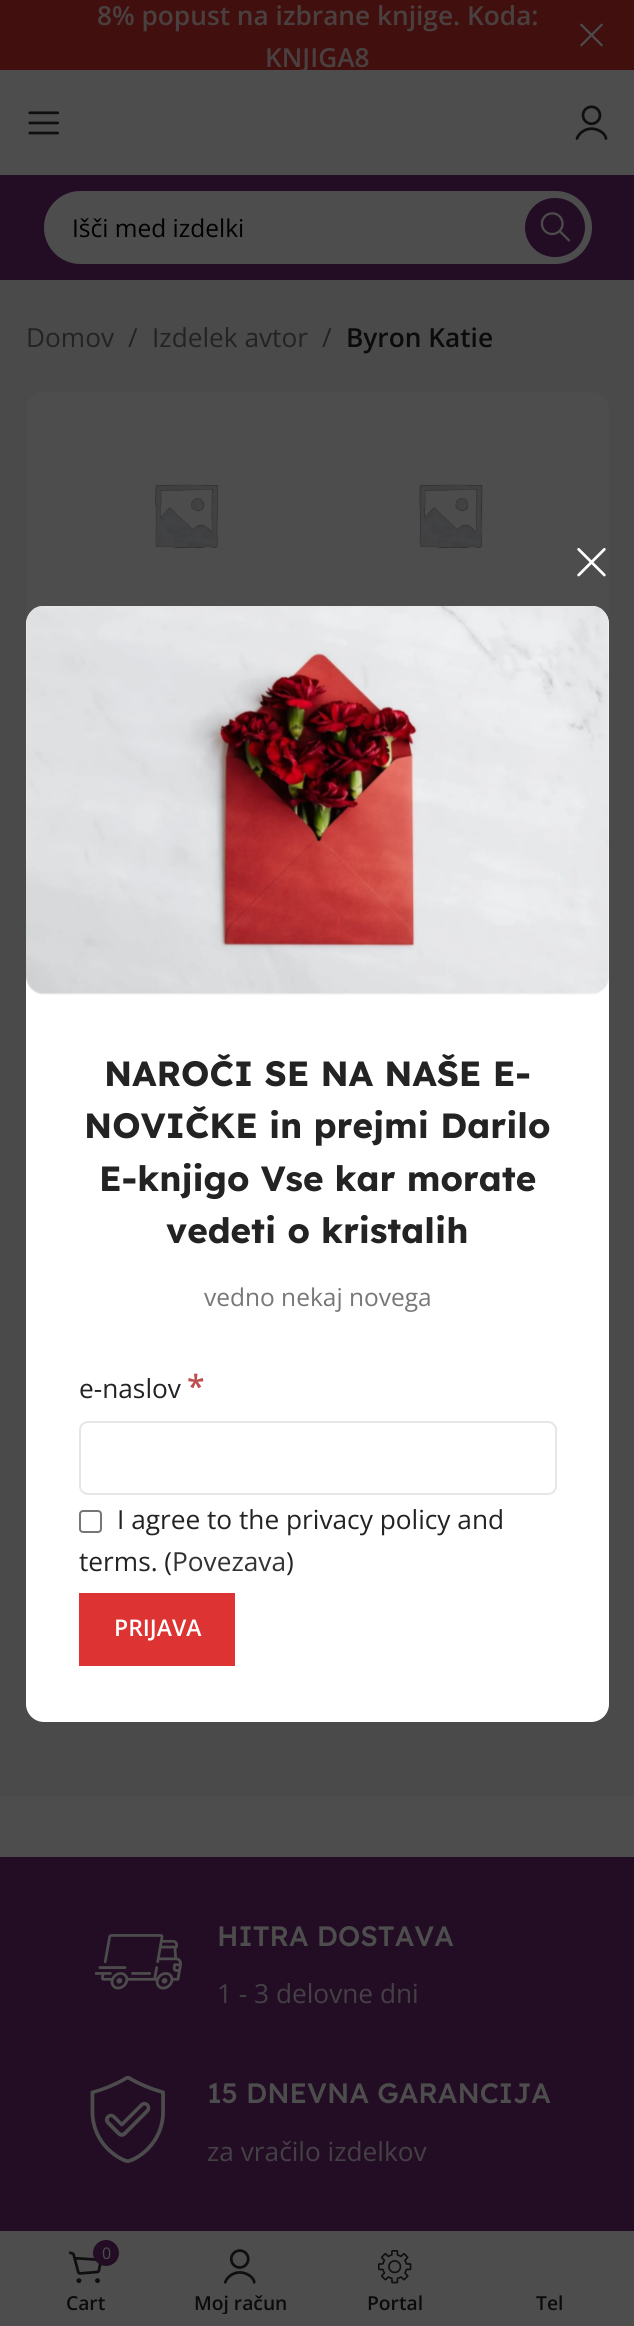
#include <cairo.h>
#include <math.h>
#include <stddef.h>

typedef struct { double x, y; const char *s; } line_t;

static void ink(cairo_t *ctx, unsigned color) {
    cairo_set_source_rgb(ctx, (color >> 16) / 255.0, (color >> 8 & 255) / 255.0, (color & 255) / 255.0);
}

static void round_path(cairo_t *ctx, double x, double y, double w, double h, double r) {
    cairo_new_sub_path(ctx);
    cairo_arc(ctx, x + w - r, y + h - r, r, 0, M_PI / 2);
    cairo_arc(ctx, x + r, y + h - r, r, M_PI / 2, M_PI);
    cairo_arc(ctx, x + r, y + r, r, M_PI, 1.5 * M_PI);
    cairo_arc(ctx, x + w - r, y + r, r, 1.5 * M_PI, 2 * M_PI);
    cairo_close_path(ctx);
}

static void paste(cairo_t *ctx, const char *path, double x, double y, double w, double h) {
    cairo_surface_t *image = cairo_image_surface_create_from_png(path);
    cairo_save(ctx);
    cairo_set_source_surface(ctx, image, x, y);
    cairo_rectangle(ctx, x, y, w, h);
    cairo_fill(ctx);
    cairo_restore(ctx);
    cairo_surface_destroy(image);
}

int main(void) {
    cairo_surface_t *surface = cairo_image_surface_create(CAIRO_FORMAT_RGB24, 634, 2326);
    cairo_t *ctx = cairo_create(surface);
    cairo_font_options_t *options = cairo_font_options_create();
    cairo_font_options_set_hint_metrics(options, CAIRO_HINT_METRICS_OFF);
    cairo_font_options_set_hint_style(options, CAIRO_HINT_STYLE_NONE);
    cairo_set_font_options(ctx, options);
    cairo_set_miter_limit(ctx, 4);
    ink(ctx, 0x4D4D4D);
    cairo_paint(ctx);
    ink(ctx, 0x420F0F);
    cairo_rectangle(ctx, 0, 0, 634, 70);
    cairo_fill(ctx);
    cairo_select_font_face(ctx, "Open Sans SemiBold", CAIRO_FONT_SLANT_NORMAL, CAIRO_FONT_WEIGHT_NORMAL);
    cairo_set_font_size(ctx, 26.25);
    ink(ctx, 0x4A4040);
    cairo_move_to(ctx, 97, 25);
    cairo_show_text(ctx, "8% popust na izbrane knjige. Koda:");
    cairo_save(ctx);
    cairo_rectangle(ctx, 0, 0, 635, 70);
    cairo_clip(ctx);
    cairo_move_to(ctx, 265, 67);
    cairo_show_text(ctx, "KNJIGA8");
    cairo_restore(ctx);
    paste(ctx, "media/1.png", 580, 23, 23, 24);
    paste(ctx, "media/2.png", 28, 111, 31, 24);
    paste(ctx, "media/3.png", 575, 105, 33, 35);
    ink(ctx, 0x230D25);
    cairo_rectangle(ctx, 0, 175, 634, 105);
    cairo_fill(ctx);
    ink(ctx, 0x4D4D4D);
    round_path(ctx, 44, 191, 548, 73, 36.5);
    cairo_fill(ctx);
    round_path(ctx, 45, 192, 546, 71, 35.5);
    cairo_set_source_rgba(ctx, 0.302, 0.302, 0.302, 0.2);
    cairo_stroke(ctx);
    cairo_select_font_face(ctx, "Open Sans", CAIRO_FONT_SLANT_NORMAL, CAIRO_FONT_WEIGHT_NORMAL);
    cairo_set_font_size(ctx, 24.5);
    ink(ctx, 0x000000);
    cairo_move_to(ctx, 72, 237);
    cairo_show_text(ctx, "Išči med izdelki");
    ink(ctx, 0x230D25);
    round_path(ctx, 525, 198, 60, 59, 29.5);
    cairo_fill(ctx);
    paste(ctx, "media/4.png", 540, 212, 31, 30);
    ink(ctx, 0x4A4A4A);
    cairo_rectangle(ctx, 0, 280, 634, 1516);
    cairo_fill(ctx);
    cairo_set_font_size(ctx, 26.25);
    ink(ctx, 0x232323);
    {
        static const line_t items[] = {
            {26, 347, "Domov"},
            {128, 347, "/"},
            {152, 347, "Izdelek avtor"},
            {322, 347, "/"},
        };
        for (size_t i = 0; i < sizeof items / sizeof *items; i++) {
            cairo_move_to(ctx, items[i].x, items[i].y);
            cairo_show_text(ctx, items[i].s);
        }
    }
    cairo_select_font_face(ctx, "Open Sans SemiBold", CAIRO_FONT_SLANT_NORMAL, CAIRO_FONT_WEIGHT_NORMAL);
    ink(ctx, 0x0B0B0B);
    cairo_move_to(ctx, 346, 347);
    cairo_show_text(ctx, "Byron Katie");
    ink(ctx, 0x4D4D4D);
    round_path(ctx, 26, 392, 583, 359, 18);
    cairo_fill(ctx);
    paste(ctx, "media/5.png", 155, 484, 64, 65);
    paste(ctx, "media/6.png", 419, 484, 64, 65);
    ink(ctx, 0x230D25);
    cairo_rectangle(ctx, 0, 1857, 634, 374);
    cairo_fill(ctx);
    paste(ctx, "media/7.png", 95, 1934, 87, 56);
    cairo_select_font_face(ctx, "Lexend Deca Medium", CAIRO_FONT_SLANT_NORMAL, CAIRO_FONT_WEIGHT_NORMAL);
    cairo_set_font_size(ctx, 28);
    ink(ctx, 0x4D4D4D);
    cairo_move_to(ctx, 217, 1946);
    cairo_show_text(ctx, "HITRA DOSTAVA");
    cairo_select_font_face(ctx, "Open Sans", CAIRO_FONT_SLANT_NORMAL, CAIRO_FONT_WEIGHT_NORMAL);
    cairo_set_font_size(ctx, 26.25);
    ink(ctx, 0x444045);
    cairo_move_to(ctx, 217, 2003);
    cairo_show_text(ctx, "1 - 3 delovne dni");
    paste(ctx, "media/8.png", 90, 2076, 75, 87);
    cairo_select_font_face(ctx, "Lexend Deca Medium", CAIRO_FONT_SLANT_NORMAL, CAIRO_FONT_WEIGHT_NORMAL);
    cairo_set_font_size(ctx, 28);
    ink(ctx, 0x4D4D4D);
    cairo_move_to(ctx, 207, 2103);
    cairo_show_text(ctx, "15 DNEVNA GARANCIJA");
    cairo_select_font_face(ctx, "Open Sans", CAIRO_FONT_SLANT_NORMAL, CAIRO_FONT_WEIGHT_NORMAL);
    cairo_set_font_size(ctx, 26.25);
    ink(ctx, 0x444045);
    cairo_move_to(ctx, 207, 2161);
    cairo_show_text(ctx, "za vračilo izdelkov");
    paste(ctx, "media/9.png", 577, 548, 29, 29);
    ink(ctx, 0xFFFFFF);
    round_path(ctx, 26, 606, 583, 1116, 18);
    cairo_fill(ctx);
    paste(ctx, "media/10.png", 26, 606, 583, 389);
    cairo_select_font_face(ctx, "Lexend Deca", CAIRO_FONT_SLANT_NORMAL, CAIRO_FONT_WEIGHT_BOLD);
    cairo_set_font_size(ctx, 35);
    ink(ctx, 0x232323);
    {
        static const line_t items[] = {
            {104, 1086, "NAROČI SE NA NAŠE E-"},
            {84, 1138, "NOVIČKE in prejmi Darilo"},
            {99, 1191, "E-knjigo Vse kar morate"},
            {166, 1243, "vedeti o kristalih"},
        };
        for (size_t i = 0; i < sizeof items / sizeof *items; i++) {
            cairo_move_to(ctx, items[i].x, items[i].y);
            cairo_show_text(ctx, items[i].s);
        }
    }
    cairo_select_font_face(ctx, "Open Sans", CAIRO_FONT_SLANT_NORMAL, CAIRO_FONT_WEIGHT_NORMAL);
    cairo_set_font_size(ctx, 24.5);
    ink(ctx, 0x777777);
    cairo_move_to(ctx, 204, 1306);
    cairo_show_text(ctx, "vedno nekaj novega");
    cairo_set_font_size(ctx, 26.25);
    ink(ctx, 0x232323);
    cairo_move_to(ctx, 79, 1398);
    cairo_show_text(ctx, "e-naslov");
    cairo_select_font_face(ctx, "Open Sans SemiBold", CAIRO_FONT_SLANT_NORMAL, CAIRO_FONT_WEIGHT_NORMAL);
    cairo_set_font_size(ctx, 32);
    ink(ctx, 0xBF4D4D);
    cairo_move_to(ctx, 187, 1398);
    cairo_show_text(ctx, "*");
    round_path(ctx, 80, 1422, 476, 72, 8);
    ink(ctx, 0xE6E6E6);
    cairo_stroke(ctx);
    round_path(ctx, 80, 1511, 21, 21, 3);
    ink(ctx, 0x767676);
    cairo_stroke(ctx);
    cairo_select_font_face(ctx, "Open Sans", CAIRO_FONT_SLANT_NORMAL, CAIRO_FONT_WEIGHT_NORMAL);
    cairo_set_font_size(ctx, 26.25);
    ink(ctx, 0x232323);
    cairo_move_to(ctx, 117, 1529);
    cairo_show_text(ctx, "I agree to the privacy policy and");
    cairo_move_to(ctx, 79, 1571);
    cairo_show_text(ctx, "terms. (");
    ink(ctx, 0x333333);
    cairo_move_to(ctx, 172, 1571);
    cairo_show_text(ctx, "Povezava");
    ink(ctx, 0x232323);
    cairo_move_to(ctx, 286, 1571);
    cairo_show_text(ctx, ")");
    ink(ctx, 0xDD3333);
    cairo_rectangle(ctx, 79, 1593, 156, 73);
    cairo_fill(ctx);
    cairo_select_font_face(ctx, "Open Sans SemiBold", CAIRO_FONT_SLANT_NORMAL, CAIRO_FONT_WEIGHT_NORMAL);
    cairo_set_font_size(ctx, 23);
    ink(ctx, 0xFFFFFF);
    cairo_move_to(ctx, 114, 1636);
    cairo_show_text(ctx, "PRIJAVA");
    paste(ctx, "media/11.png", 68, 2251, 34, 33);
    ink(ctx, 0x230D25);
    cairo_arc(ctx, 106, 2253, 13, 0, 2 * M_PI);
    cairo_fill(ctx);
    cairo_select_font_face(ctx, "Open Sans", CAIRO_FONT_SLANT_NORMAL, CAIRO_FONT_WEIGHT_NORMAL);
    cairo_set_font_size(ctx, 16);
    ink(ctx, 0x4D4D4D);
    cairo_move_to(ctx, 102, 2259);
    cairo_show_text(ctx, "0");
    cairo_select_font_face(ctx, "Open Sans SemiBold", CAIRO_FONT_SLANT_NORMAL, CAIRO_FONT_WEIGHT_NORMAL);
    cairo_set_font_size(ctx, 19.25);
    ink(ctx, 0x0B0B0B);
    cairo_move_to(ctx, 66, 2310);
    cairo_show_text(ctx, "Cart");
    paste(ctx, "media/12.png", 223, 2249, 33, 35);
    cairo_save(ctx);
    cairo_rectangle(ctx, 180, 2291, 121, 23);
    cairo_clip(ctx);
    cairo_move_to(ctx, 194, 2310);
    cairo_show_text(ctx, "Moj račun");
    cairo_restore(ctx);
    paste(ctx, "media/13.png", 378, 2250, 34, 34);
    cairo_move_to(ctx, 367, 2310);
    cairo_show_text(ctx, "Portal");
    cairo_move_to(ctx, 536, 2310);
    cairo_show_text(ctx, "Tel");
    cairo_surface_write_to_png(surface, "image.png");
    cairo_font_options_destroy(options);
    cairo_destroy(ctx);
    cairo_surface_destroy(surface);
    return 0;
}
